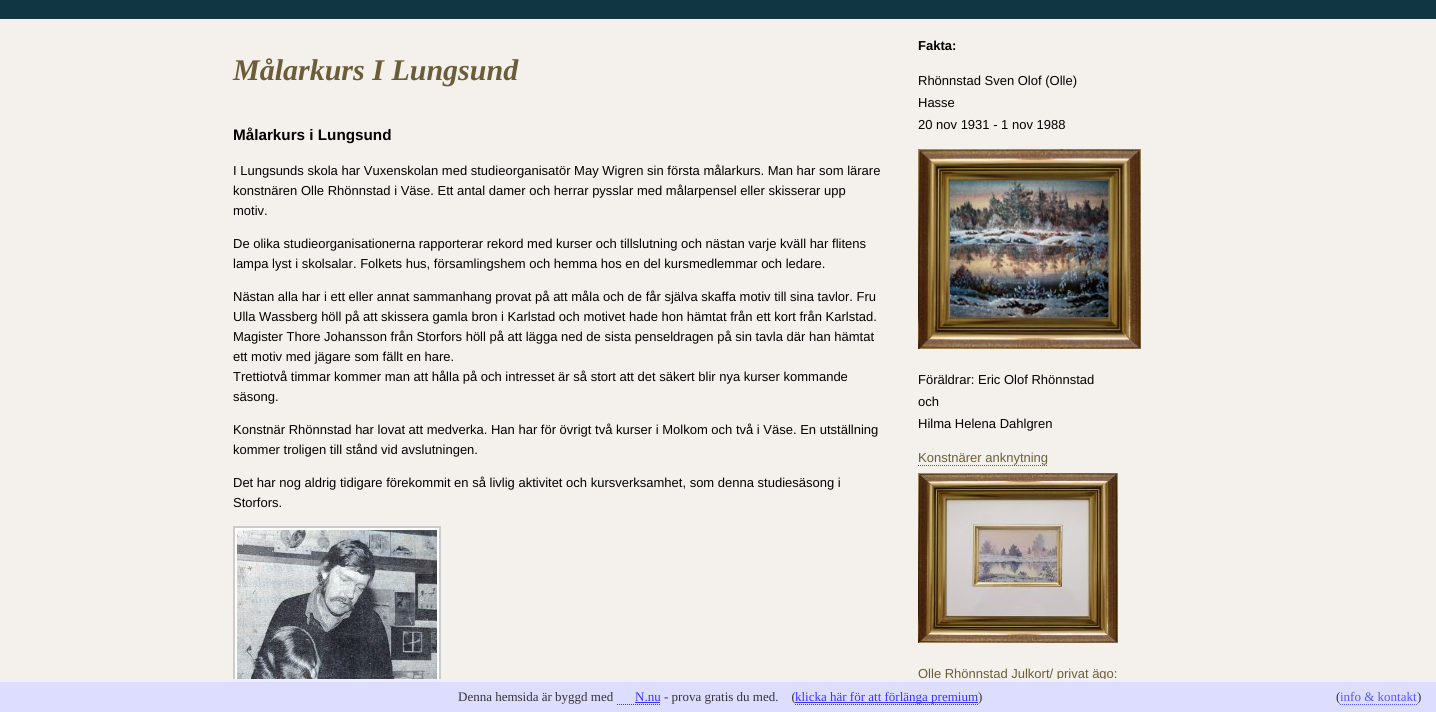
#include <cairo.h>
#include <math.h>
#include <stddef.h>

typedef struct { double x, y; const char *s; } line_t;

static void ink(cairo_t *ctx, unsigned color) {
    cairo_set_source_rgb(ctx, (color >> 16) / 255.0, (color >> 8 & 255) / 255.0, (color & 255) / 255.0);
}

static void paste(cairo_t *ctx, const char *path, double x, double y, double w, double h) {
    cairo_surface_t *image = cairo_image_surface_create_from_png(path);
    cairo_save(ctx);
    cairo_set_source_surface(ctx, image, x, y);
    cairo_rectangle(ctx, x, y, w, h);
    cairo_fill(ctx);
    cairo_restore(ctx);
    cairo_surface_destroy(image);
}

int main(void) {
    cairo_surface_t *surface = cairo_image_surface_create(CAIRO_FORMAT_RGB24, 1436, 712);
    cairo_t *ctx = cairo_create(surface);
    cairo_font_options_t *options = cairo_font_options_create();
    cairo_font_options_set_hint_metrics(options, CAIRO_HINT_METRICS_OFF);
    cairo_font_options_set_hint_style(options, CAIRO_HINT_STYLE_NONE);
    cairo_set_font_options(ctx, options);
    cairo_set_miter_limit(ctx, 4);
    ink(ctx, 0xF4F0EB);
    cairo_paint(ctx);
    ink(ctx, 0x103643);
    cairo_rectangle(ctx, 0, 0, 1436, 19);
    cairo_fill(ctx);
    cairo_select_font_face(ctx, "Liberation Serif", CAIRO_FONT_SLANT_ITALIC, CAIRO_FONT_WEIGHT_BOLD);
    cairo_set_font_size(ctx, 30);
    ink(ctx, 0x6B5D38);
    cairo_move_to(ctx, 233, 80);
    cairo_show_text(ctx, "Målarkurs I Lungsund");
    cairo_select_font_face(ctx, "Liberation Sans", CAIRO_FONT_SLANT_NORMAL, CAIRO_FONT_WEIGHT_BOLD);
    cairo_set_font_size(ctx, 15.25);
    ink(ctx, 0x000000);
    cairo_move_to(ctx, 233, 140);
    cairo_show_text(ctx, "Målarkurs i Lungsund");
    cairo_select_font_face(ctx, "Liberation Sans", CAIRO_FONT_SLANT_NORMAL, CAIRO_FONT_WEIGHT_NORMAL);
    cairo_set_font_size(ctx, 13);
    {
        static const line_t items[] = {
            {233, 175, "I Lungsunds skola har Vuxenskolan med studieorganisatör May Wigren sin första målarkurs. Man har som lärare"},
            {233, 195, "konstnären Olle Rhönnstad i Väse. Ett antal damer och herrar pysslar med målarpensel eller skisserar upp"},
            {233, 215, "motiv."},
            {233, 248, "De olika studieorganisationerna rapporterar rekord med kurser och tillslutning och nästan varje kväll har flitens"},
            {233, 268, "lampa lyst i skolsalar. Folkets hus, församlingshem och hemma hos en del kursmedlemmar och ledare."},
            {233, 301, "Nästan alla har i ett eller annat sammanhang provat på att måla och de får själva skaffa motiv till sina tavlor. Fru"},
            {233, 321, "Ulla Wassberg höll på att skissera gamla bron i Karlstad och motivet hade hon hämtat från ett kort från Karlstad."},
            {233, 341, "Magister Thore Johansson från Storfors höll på att lägga ned de sista penseldragen på sin tavla där han hämtat"},
            {233, 361, "ett motiv med jägare som fällt en hare."},
            {233, 381, "Trettiotvå timmar kommer man att hålla på och intresset är så stort att det säkert blir nya kurser kommande"},
            {233, 401, "säsong."},
            {233, 434, "Konstnär Rhönnstad har lovat att medverka. Han har för övrigt två kurser i Molkom och två i Väse. En utställning"},
            {233, 454, "kommer troligen till stånd vid avslutningen."},
            {233, 487, "Det har nog aldrig tidigare förekommit en så livlig aktivitet och kursverksamhet, som denna studiesäsong i"},
            {233, 507, "Storfors."},
        };
        for (size_t i = 0; i < sizeof items / sizeof *items; i++) {
            cairo_move_to(ctx, items[i].x, items[i].y);
            cairo_show_text(ctx, items[i].s);
        }
    }
    ink(ctx, 0xFFFFFF);
    cairo_rectangle(ctx, 235, 528, 204, 151);
    cairo_fill(ctx);
    cairo_rectangle(ctx, 234, 527, 206, 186);
    ink(ctx, 0xCCCCCC);
    cairo_stroke(ctx);
    paste(ctx, "media/1.png", 237, 530, 200, 149);
    cairo_select_font_face(ctx, "Liberation Sans", CAIRO_FONT_SLANT_NORMAL, CAIRO_FONT_WEIGHT_BOLD);
    ink(ctx, 0x000000);
    cairo_move_to(ctx, 918, 50);
    cairo_show_text(ctx, "Fakta:");
    cairo_select_font_face(ctx, "Liberation Sans", CAIRO_FONT_SLANT_NORMAL, CAIRO_FONT_WEIGHT_NORMAL);
    {
        static const line_t items[] = {
            {918, 85, "Rhönnstad Sven Olof (Olle)"},
            {918, 107, "Hasse"},
            {918, 129, "20 nov 1931 - 1 nov 1988"},
        };
        for (size_t i = 0; i < sizeof items / sizeof *items; i++) {
            cairo_move_to(ctx, items[i].x, items[i].y);
            cairo_show_text(ctx, items[i].s);
        }
    }
    paste(ctx, "media/2.png", 918, 149, 223, 200);
    {
        static const line_t items[] = {
            {918, 384, "Föräldrar: Eric Olof Rhönnstad"},
            {918, 406, "och"},
            {918, 428, "Hilma Helena Dahlgren"},
        };
        for (size_t i = 0; i < sizeof items / sizeof *items; i++) {
            cairo_move_to(ctx, items[i].x, items[i].y);
            cairo_show_text(ctx, items[i].s);
        }
    }
    ink(ctx, 0x6B5D38);
    cairo_move_to(ctx, 918, 462);
    cairo_show_text(ctx, "Konstnärer anknytning");
    cairo_new_path(ctx);
    cairo_move_to(ctx, 918, 465.5);
    cairo_line_to(ctx, 1048, 465.5);
    cairo_set_line_width(ctx, 1);
    cairo_set_dash(ctx, (double[]){1, 1}, 2, 0);
    cairo_stroke(ctx);
    paste(ctx, "media/3.png", 918, 473, 200, 170);
    cairo_move_to(ctx, 918, 678);
    cairo_show_text(ctx, "Olle Rhönnstad Julkort/ privat ägo:");
    ink(ctx, 0xDDDDFF);
    cairo_rectangle(ctx, 0, 682, 1436, 30);
    cairo_fill(ctx);
    ink(ctx, 0xEEEEFF);
    cairo_rectangle(ctx, 0, 679, 1436, 3);
    cairo_fill(ctx);
    cairo_select_font_face(ctx, "Liberation Serif", CAIRO_FONT_SLANT_NORMAL, CAIRO_FONT_WEIGHT_NORMAL);
    ink(ctx, 0x333333);
    cairo_move_to(ctx, 458, 701);
    cairo_show_text(ctx, "Denna hemsida är byggd med");
    ink(ctx, 0x3333FF);
    cairo_move_to(ctx, 635, 701);
    cairo_show_text(ctx, "N.nu");
    cairo_new_path(ctx);
    cairo_move_to(ctx, 617, 704.5);
    cairo_line_to(ctx, 660, 704.5);
    cairo_stroke(ctx);
    cairo_rectangle(ctx, 635, 702, 25, 1);
    cairo_fill(ctx);
    ink(ctx, 0x333333);
    cairo_move_to(ctx, 664, 701);
    cairo_show_text(ctx, "- prova gratis du med.    (");
    ink(ctx, 0x3333FF);
    cairo_rectangle(ctx, 795, 702, 183, 1);
    cairo_fill(ctx);
    cairo_move_to(ctx, 795, 701);
    cairo_show_text(ctx, "klicka här för att förlänga premium");
    cairo_new_path(ctx);
    cairo_move_to(ctx, 795, 704.5);
    cairo_line_to(ctx, 978, 704.5);
    cairo_stroke(ctx);
    ink(ctx, 0x333333);
    cairo_move_to(ctx, 978, 701);
    cairo_show_text(ctx, ")");
    cairo_move_to(ctx, 1336, 701);
    cairo_show_text(ctx, "(");
    ink(ctx, 0x5555FF);
    cairo_move_to(ctx, 1340, 701);
    cairo_show_text(ctx, "info & kontakt");
    cairo_new_path(ctx);
    cairo_move_to(ctx, 1340, 704.5);
    cairo_line_to(ctx, 1417, 704.5);
    cairo_stroke(ctx);
    ink(ctx, 0x333333);
    cairo_move_to(ctx, 1417, 701);
    cairo_show_text(ctx, ")");
    cairo_surface_write_to_png(surface, "image.png");
    cairo_font_options_destroy(options);
    cairo_destroy(ctx);
    cairo_surface_destroy(surface);
    return 0;
}
